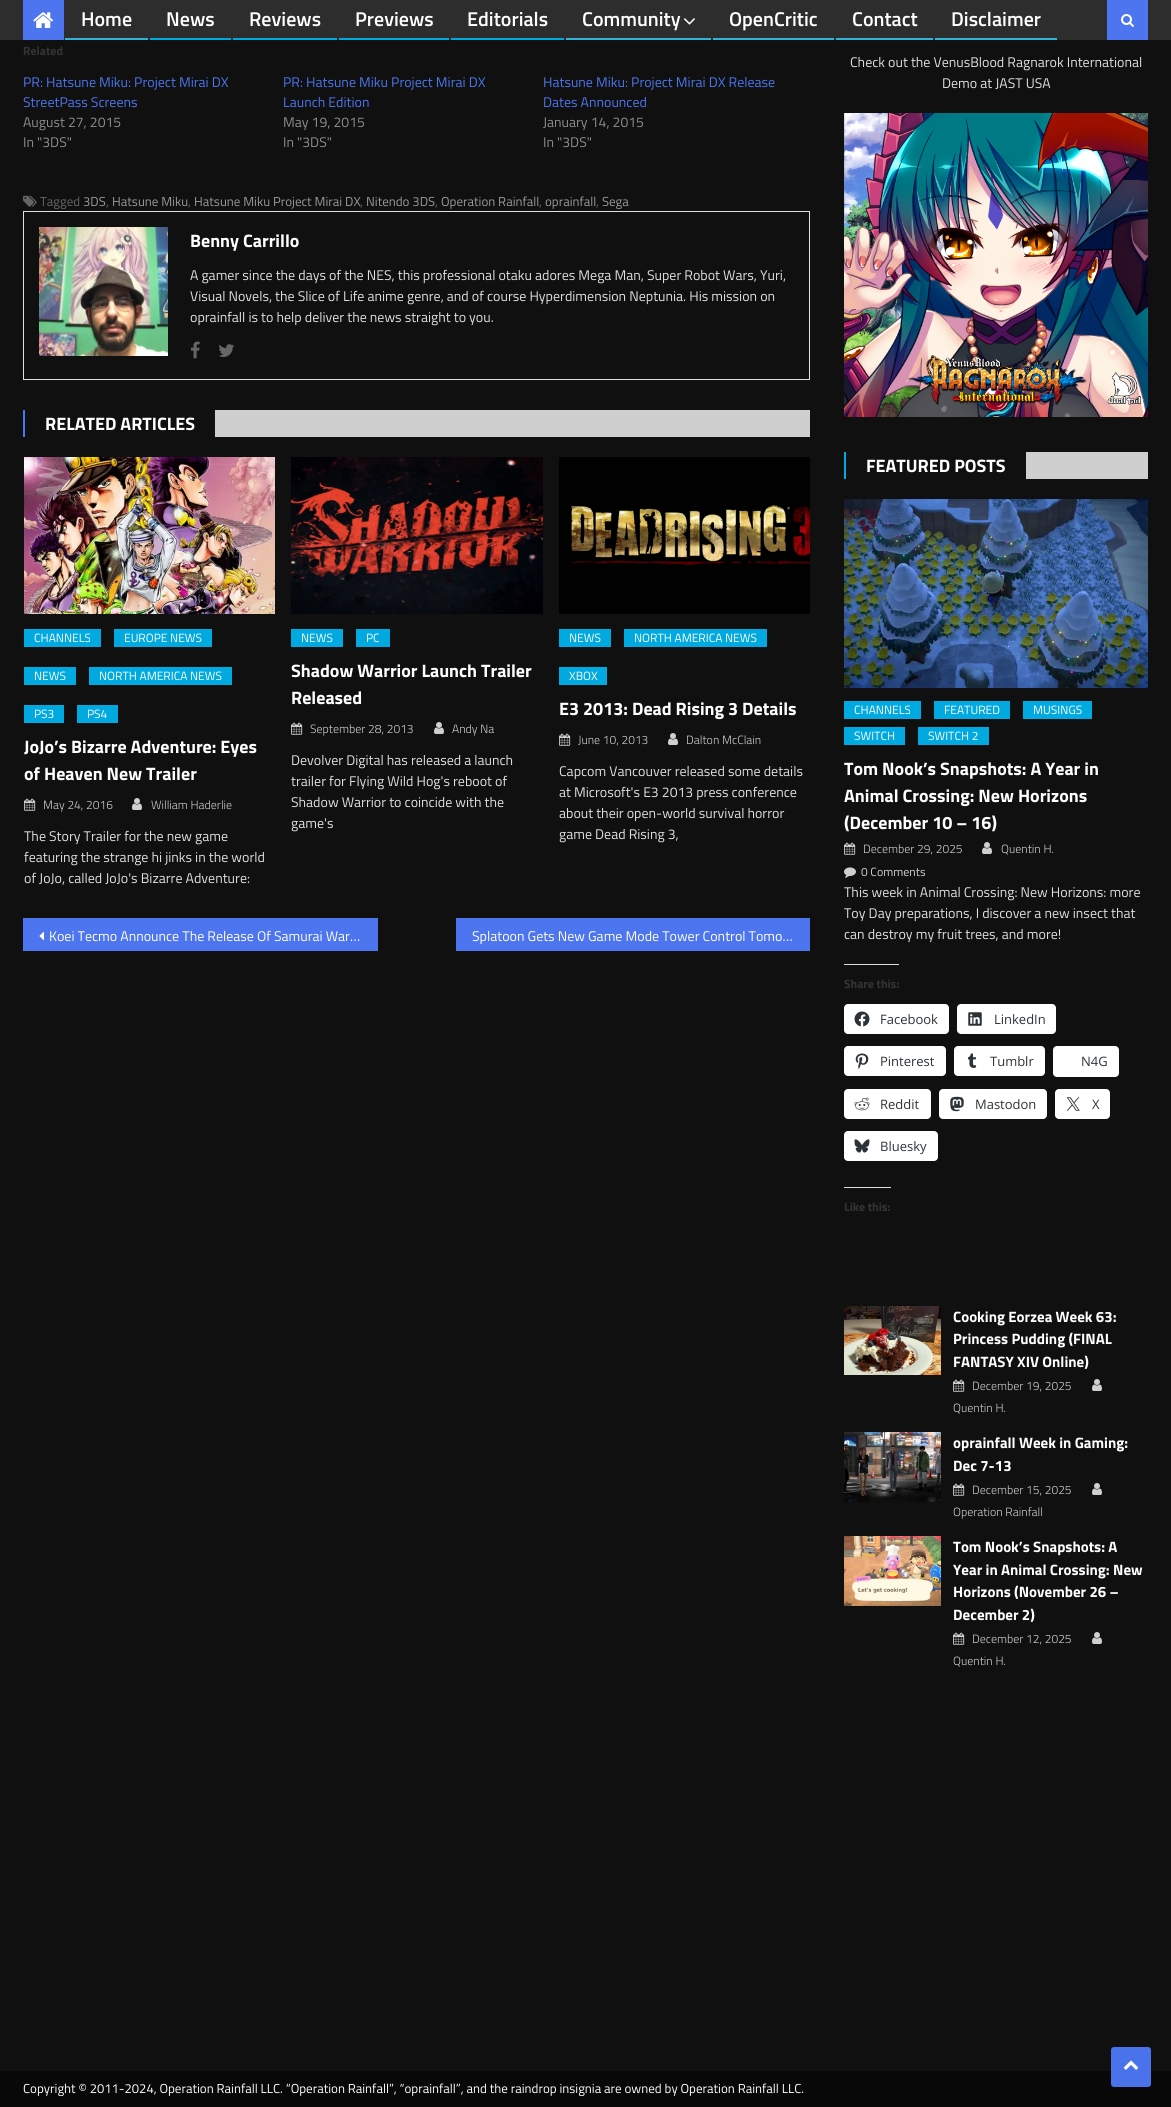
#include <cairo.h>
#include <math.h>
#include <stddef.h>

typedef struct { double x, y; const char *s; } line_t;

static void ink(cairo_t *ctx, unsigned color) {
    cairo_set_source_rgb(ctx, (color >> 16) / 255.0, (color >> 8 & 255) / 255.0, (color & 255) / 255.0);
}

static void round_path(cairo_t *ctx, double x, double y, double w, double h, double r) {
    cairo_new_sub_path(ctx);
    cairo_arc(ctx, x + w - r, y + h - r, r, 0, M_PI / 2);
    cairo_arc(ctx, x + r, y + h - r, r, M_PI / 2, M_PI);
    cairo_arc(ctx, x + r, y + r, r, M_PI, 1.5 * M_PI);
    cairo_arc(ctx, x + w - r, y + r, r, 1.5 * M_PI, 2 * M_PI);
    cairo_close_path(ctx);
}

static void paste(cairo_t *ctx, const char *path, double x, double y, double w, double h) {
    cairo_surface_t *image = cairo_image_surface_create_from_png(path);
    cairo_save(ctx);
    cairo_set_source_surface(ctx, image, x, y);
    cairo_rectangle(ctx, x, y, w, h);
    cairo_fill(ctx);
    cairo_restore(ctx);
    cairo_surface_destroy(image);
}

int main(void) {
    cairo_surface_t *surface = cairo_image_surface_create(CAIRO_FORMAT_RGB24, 1171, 2107);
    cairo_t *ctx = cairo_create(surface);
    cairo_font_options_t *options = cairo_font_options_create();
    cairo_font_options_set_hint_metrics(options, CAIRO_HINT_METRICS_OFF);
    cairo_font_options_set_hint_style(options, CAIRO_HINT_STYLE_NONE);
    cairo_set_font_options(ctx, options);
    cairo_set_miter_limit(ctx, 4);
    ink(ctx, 0x101010);
    cairo_paint(ctx);
    ink(ctx, 0x2D2D2D);
    cairo_rectangle(ctx, 0, 0, 1171, 40);
    cairo_fill(ctx);
    ink(ctx, 0x4C75EF);
    cairo_rectangle(ctx, 23, 0, 41, 40);
    cairo_fill(ctx);
    paste(ctx, "media/1.png", 33, 12, 21, 16);
    ink(ctx, 0x32B3D3);
    cairo_rectangle(ctx, 65, 38, 83, 2);
    cairo_fill(ctx);
    cairo_select_font_face(ctx, "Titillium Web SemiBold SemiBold", CAIRO_FONT_SLANT_NORMAL, CAIRO_FONT_WEIGHT_NORMAL);
    cairo_set_font_size(ctx, 20);
    ink(ctx, 0xFFFFFF);
    cairo_move_to(ctx, 81, 26);
    cairo_show_text(ctx, "Home");
    ink(ctx, 0x00A9E0);
    cairo_rectangle(ctx, 150, 38, 81, 2);
    cairo_fill(ctx);
    ink(ctx, 0xFFFFFF);
    cairo_move_to(ctx, 166, 26);
    cairo_show_text(ctx, "News");
    ink(ctx, 0x00A9E0);
    cairo_rectangle(ctx, 233, 38, 104, 2);
    cairo_fill(ctx);
    ink(ctx, 0xFFFFFF);
    cairo_move_to(ctx, 249, 26);
    cairo_show_text(ctx, "Reviews");
    ink(ctx, 0x00A9E0);
    cairo_rectangle(ctx, 339, 38, 110, 2);
    cairo_fill(ctx);
    ink(ctx, 0xFFFFFF);
    cairo_move_to(ctx, 355, 26);
    cairo_show_text(ctx, "Previews");
    ink(ctx, 0x00A9E0);
    cairo_rectangle(ctx, 451, 38, 113, 2);
    cairo_fill(ctx);
    ink(ctx, 0xFFFFFF);
    cairo_move_to(ctx, 467, 26);
    cairo_show_text(ctx, "Editorials");
    ink(ctx, 0x32B3D3);
    cairo_rectangle(ctx, 566, 38, 145, 2);
    cairo_fill(ctx);
    ink(ctx, 0xFFFFFF);
    cairo_move_to(ctx, 582, 26);
    cairo_show_text(ctx, "Community");
    paste(ctx, "media/2.png", 683, 18, 12, 7);
    ink(ctx, 0x32B3D3);
    cairo_rectangle(ctx, 713, 38, 121, 2);
    cairo_fill(ctx);
    ink(ctx, 0xFFFFFF);
    cairo_move_to(ctx, 729, 26);
    cairo_show_text(ctx, "OpenCritic");
    ink(ctx, 0x32B3D3);
    cairo_rectangle(ctx, 836, 38, 97, 2);
    cairo_fill(ctx);
    ink(ctx, 0xFFFFFF);
    cairo_move_to(ctx, 852, 26);
    cairo_show_text(ctx, "Contact");
    ink(ctx, 0x32B3D3);
    cairo_rectangle(ctx, 935, 38, 122, 2);
    cairo_fill(ctx);
    ink(ctx, 0xFFFFFF);
    cairo_move_to(ctx, 951, 26);
    cairo_show_text(ctx, "Disclaimer");
    ink(ctx, 0x4C75EF);
    cairo_rectangle(ctx, 1107, 0, 41, 40);
    cairo_fill(ctx);
    paste(ctx, "media/3.png", 1121, 14, 13, 13);
    cairo_select_font_face(ctx, "Titillium Web", CAIRO_FONT_SLANT_NORMAL, CAIRO_FONT_WEIGHT_BOLD);
    cairo_set_font_size(ctx, 12);
    ink(ctx, 0x333333);
    cairo_move_to(ctx, 23, 55);
    cairo_show_text(ctx, "Related");
    cairo_select_font_face(ctx, "Titillium Web", CAIRO_FONT_SLANT_NORMAL, CAIRO_FONT_WEIGHT_NORMAL);
    cairo_set_font_size(ctx, 14);
    ink(ctx, 0x4C75EF);
    cairo_move_to(ctx, 23, 87);
    cairo_show_text(ctx, "PR: Hatsune Miku: Project Mirai DX");
    cairo_move_to(ctx, 23, 107);
    cairo_show_text(ctx, "StreetPass Screens");
    ink(ctx, 0x8C8C8C);
    cairo_move_to(ctx, 23, 127);
    cairo_show_text(ctx, "August 27, 2015");
    cairo_move_to(ctx, 23, 147);
    cairo_show_text(ctx, "In \"3DS\"");
    ink(ctx, 0x4C75EF);
    cairo_move_to(ctx, 283, 87);
    cairo_show_text(ctx, "PR: Hatsune Miku Project Mirai DX");
    cairo_move_to(ctx, 283, 107);
    cairo_show_text(ctx, "Launch Edition");
    ink(ctx, 0x8C8C8C);
    cairo_move_to(ctx, 283, 127);
    cairo_show_text(ctx, "May 19, 2015");
    cairo_move_to(ctx, 283, 147);
    cairo_show_text(ctx, "In \"3DS\"");
    ink(ctx, 0x4C75EF);
    cairo_move_to(ctx, 543, 87);
    cairo_show_text(ctx, "Hatsune Miku: Project Mirai DX Release");
    cairo_move_to(ctx, 543, 107);
    cairo_show_text(ctx, "Dates Announced");
    ink(ctx, 0x8C8C8C);
    cairo_move_to(ctx, 543, 127);
    cairo_show_text(ctx, "January 14, 2015");
    cairo_move_to(ctx, 543, 147);
    cairo_show_text(ctx, "In \"3DS\"");
    paste(ctx, "media/4.png", 23, 195, 14, 12);
    cairo_set_font_size(ctx, 13);
    ink(ctx, 0x656565);
    cairo_move_to(ctx, 40, 206);
    cairo_show_text(ctx, "Tagged");
    ink(ctx, 0x999999);
    cairo_move_to(ctx, 83, 206);
    cairo_show_text(ctx, "3DS");
    ink(ctx, 0x656565);
    cairo_move_to(ctx, 106, 206);
    cairo_show_text(ctx, ",");
    ink(ctx, 0x999999);
    cairo_move_to(ctx, 112, 206);
    cairo_show_text(ctx, "Hatsune Miku");
    ink(ctx, 0x656565);
    cairo_move_to(ctx, 188, 206);
    cairo_show_text(ctx, ",");
    ink(ctx, 0x999999);
    cairo_move_to(ctx, 194, 206);
    cairo_show_text(ctx, "Hatsune Miku Project Mirai DX");
    ink(ctx, 0x656565);
    cairo_move_to(ctx, 360, 206);
    cairo_show_text(ctx, ",");
    ink(ctx, 0x999999);
    cairo_move_to(ctx, 366, 206);
    cairo_show_text(ctx, "Nitendo 3DS");
    ink(ctx, 0x656565);
    cairo_move_to(ctx, 435, 206);
    cairo_show_text(ctx, ",");
    ink(ctx, 0x999999);
    cairo_move_to(ctx, 441, 206);
    cairo_show_text(ctx, "Operation Rainfall");
    ink(ctx, 0x656565);
    cairo_move_to(ctx, 539, 206);
    cairo_show_text(ctx, ",");
    ink(ctx, 0x999999);
    cairo_move_to(ctx, 545, 206);
    cairo_show_text(ctx, "oprainfall");
    ink(ctx, 0x656565);
    cairo_move_to(ctx, 596, 206);
    cairo_show_text(ctx, ",");
    ink(ctx, 0x999999);
    cairo_move_to(ctx, 602, 206);
    cairo_show_text(ctx, "Sega");
    cairo_rectangle(ctx, 23.5, 211.5, 786, 168);
    ink(ctx, 0xE1E1E1);
    cairo_set_line_width(ctx, 1);
    cairo_stroke(ctx);
    paste(ctx, "media/5.png", 39, 227, 129, 129);
    cairo_select_font_face(ctx, "Titillium Web", CAIRO_FONT_SLANT_NORMAL, CAIRO_FONT_WEIGHT_BOLD);
    cairo_set_font_size(ctx, 18);
    ink(ctx, 0xFFFFFF);
    cairo_move_to(ctx, 190, 247);
    cairo_show_text(ctx, "Benny Carrillo");
    cairo_select_font_face(ctx, "Titillium Web", CAIRO_FONT_SLANT_NORMAL, CAIRO_FONT_WEIGHT_NORMAL);
    cairo_set_font_size(ctx, 14);
    ink(ctx, 0xDFDFDF);
    {
        static const line_t items[] = {
            {190, 280, "A gamer since the days of the NES, this professional otaku adores Mega Man, Super Robot Wars, Yuri,"},
            {190, 301, "Visual Novels, the Slice of Life anime genre, and of course Hyperdimension Neptunia. His mission on"},
            {190, 322, "oprainfall is to help deliver the news straight to you."},
        };
        for (size_t i = 0; i < sizeof items / sizeof *items; i++) {
            cairo_move_to(ctx, items[i].x, items[i].y);
            cairo_show_text(ctx, items[i].s);
        }
    }
    paste(ctx, "media/6.png", 190, 341, 10, 18);
    paste(ctx, "media/7.png", 218, 344, 16, 13);
    ink(ctx, 0xCFCFCF);
    cairo_rectangle(ctx, 215, 410, 595, 27);
    cairo_fill(ctx);
    ink(ctx, 0x4C75EF);
    cairo_rectangle(ctx, 23, 410, 2, 27);
    cairo_fill(ctx);
    cairo_select_font_face(ctx, "Titillium Web", CAIRO_FONT_SLANT_NORMAL, CAIRO_FONT_WEIGHT_BOLD);
    cairo_set_font_size(ctx, 18);
    ink(ctx, 0xFFFFFF);
    cairo_move_to(ctx, 45, 430);
    cairo_show_text(ctx, "RELATED ARTICLES");
    paste(ctx, "media/8.png", 24, 457, 251, 157);
    ink(ctx, 0x00A9E0);
    cairo_rectangle(ctx, 24, 629, 77, 18);
    cairo_fill(ctx);
    cairo_select_font_face(ctx, "Titillium Web", CAIRO_FONT_SLANT_NORMAL, CAIRO_FONT_WEIGHT_NORMAL);
    cairo_set_font_size(ctx, 12);
    ink(ctx, 0xFFFFFF);
    cairo_move_to(ctx, 34, 642);
    cairo_show_text(ctx, "CHANNELS");
    ink(ctx, 0x00A9E0);
    cairo_rectangle(ctx, 114, 629, 98, 18);
    cairo_fill(ctx);
    ink(ctx, 0xFFFFFF);
    cairo_move_to(ctx, 124, 642);
    cairo_show_text(ctx, "EUROPE NEWS");
    ink(ctx, 0x00A9E0);
    cairo_rectangle(ctx, 24, 667, 52, 18);
    cairo_fill(ctx);
    ink(ctx, 0xFFFFFF);
    cairo_move_to(ctx, 34, 680);
    cairo_show_text(ctx, "NEWS");
    ink(ctx, 0x00A9E0);
    cairo_rectangle(ctx, 89, 667, 143, 18);
    cairo_fill(ctx);
    ink(ctx, 0xFFFFFF);
    cairo_move_to(ctx, 99, 680);
    cairo_show_text(ctx, "NORTH AMERICA NEWS");
    ink(ctx, 0x00A9E0);
    cairo_rectangle(ctx, 24, 705, 40, 18);
    cairo_fill(ctx);
    ink(ctx, 0xFFFFFF);
    cairo_move_to(ctx, 34, 718);
    cairo_show_text(ctx, "PS3");
    ink(ctx, 0x00A9E0);
    cairo_rectangle(ctx, 77, 705, 41, 18);
    cairo_fill(ctx);
    ink(ctx, 0xFFFFFF);
    cairo_move_to(ctx, 87, 718);
    cairo_show_text(ctx, "PS4");
    cairo_select_font_face(ctx, "Titillium Web", CAIRO_FONT_SLANT_NORMAL, CAIRO_FONT_WEIGHT_BOLD);
    cairo_set_font_size(ctx, 18);
    cairo_move_to(ctx, 24, 753);
    cairo_show_text(ctx, "JoJo’s Bizarre Adventure: Eyes");
    cairo_move_to(ctx, 24, 780);
    cairo_show_text(ctx, "of Heaven New Trailer");
    paste(ctx, "media/9.png", 24, 798, 12, 13);
    cairo_select_font_face(ctx, "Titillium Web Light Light", CAIRO_FONT_SLANT_NORMAL, CAIRO_FONT_WEIGHT_NORMAL);
    cairo_set_font_size(ctx, 12);
    ink(ctx, 0xCFCFCF);
    cairo_move_to(ctx, 43, 809);
    cairo_show_text(ctx, "May 24, 2016");
    paste(ctx, "media/10.png", 132, 798, 10, 12);
    cairo_move_to(ctx, 151, 809);
    cairo_show_text(ctx, "William Haderlie");
    cairo_select_font_face(ctx, "Titillium Web", CAIRO_FONT_SLANT_NORMAL, CAIRO_FONT_WEIGHT_NORMAL);
    cairo_set_font_size(ctx, 14);
    ink(ctx, 0xDFDFDF);
    {
        static const line_t items[] = {
            {24, 841, "The Story Trailer for the new game"},
            {24, 862, "featuring the strange hi jinks in the world"},
            {24, 883, "of JoJo, called JoJo's Bizarre Adventure:"},
        };
        for (size_t i = 0; i < sizeof items / sizeof *items; i++) {
            cairo_move_to(ctx, items[i].x, items[i].y);
            cairo_show_text(ctx, items[i].s);
        }
    }
    paste(ctx, "media/11.png", 291, 457, 252, 157);
    ink(ctx, 0x00A9E0);
    cairo_rectangle(ctx, 291, 629, 52, 18);
    cairo_fill(ctx);
    cairo_set_font_size(ctx, 12);
    ink(ctx, 0xFFFFFF);
    cairo_move_to(ctx, 301, 642);
    cairo_show_text(ctx, "NEWS");
    ink(ctx, 0x00A9E0);
    cairo_rectangle(ctx, 356, 629, 34, 18);
    cairo_fill(ctx);
    ink(ctx, 0xFFFFFF);
    cairo_move_to(ctx, 366, 642);
    cairo_show_text(ctx, "PC");
    cairo_select_font_face(ctx, "Titillium Web", CAIRO_FONT_SLANT_NORMAL, CAIRO_FONT_WEIGHT_BOLD);
    cairo_set_font_size(ctx, 18);
    cairo_move_to(ctx, 291, 677);
    cairo_show_text(ctx, "Shadow Warrior Launch Trailer");
    cairo_move_to(ctx, 291, 704);
    cairo_show_text(ctx, "Released");
    paste(ctx, "media/9.png", 291, 722, 12, 13);
    cairo_select_font_face(ctx, "Titillium Web Light Light", CAIRO_FONT_SLANT_NORMAL, CAIRO_FONT_WEIGHT_NORMAL);
    cairo_set_font_size(ctx, 12);
    ink(ctx, 0xCFCFCF);
    cairo_move_to(ctx, 310, 733);
    cairo_show_text(ctx, "September 28, 2013");
    paste(ctx, "media/10.png", 434, 722, 10, 12);
    cairo_move_to(ctx, 452, 733);
    cairo_show_text(ctx, "Andy Na");
    cairo_select_font_face(ctx, "Titillium Web", CAIRO_FONT_SLANT_NORMAL, CAIRO_FONT_WEIGHT_NORMAL);
    cairo_set_font_size(ctx, 14);
    ink(ctx, 0xDFDFDF);
    {
        static const line_t items[] = {
            {291, 765, "Devolver Digital has released a launch"},
            {291, 786, "trailer for Flying Wild Hog's reboot of"},
            {291, 807, "Shadow Warrior to coincide with the"},
            {291, 828, "game's"},
        };
        for (size_t i = 0; i < sizeof items / sizeof *items; i++) {
            cairo_move_to(ctx, items[i].x, items[i].y);
            cairo_show_text(ctx, items[i].s);
        }
    }
    paste(ctx, "media/12.png", 559, 457, 251, 157);
    ink(ctx, 0x00A9E0);
    cairo_rectangle(ctx, 559, 629, 52, 18);
    cairo_fill(ctx);
    cairo_set_font_size(ctx, 12);
    ink(ctx, 0xFFFFFF);
    cairo_move_to(ctx, 569, 642);
    cairo_show_text(ctx, "NEWS");
    ink(ctx, 0x00A9E0);
    cairo_rectangle(ctx, 624, 629, 143, 18);
    cairo_fill(ctx);
    ink(ctx, 0xFFFFFF);
    cairo_move_to(ctx, 634, 642);
    cairo_show_text(ctx, "NORTH AMERICA NEWS");
    ink(ctx, 0x00A9E0);
    cairo_rectangle(ctx, 559, 667, 48, 18);
    cairo_fill(ctx);
    ink(ctx, 0xFFFFFF);
    cairo_move_to(ctx, 569, 680);
    cairo_show_text(ctx, "XBOX");
    cairo_select_font_face(ctx, "Titillium Web", CAIRO_FONT_SLANT_NORMAL, CAIRO_FONT_WEIGHT_BOLD);
    cairo_set_font_size(ctx, 18);
    cairo_move_to(ctx, 559, 715);
    cairo_show_text(ctx, "E3 2013: Dead Rising 3 Details");
    paste(ctx, "media/9.png", 559, 733, 12, 13);
    cairo_select_font_face(ctx, "Titillium Web Light Light", CAIRO_FONT_SLANT_NORMAL, CAIRO_FONT_WEIGHT_NORMAL);
    cairo_set_font_size(ctx, 12);
    ink(ctx, 0xCFCFCF);
    cairo_move_to(ctx, 578, 744);
    cairo_show_text(ctx, "June 10, 2013");
    paste(ctx, "media/10.png", 668, 733, 10, 12);
    cairo_move_to(ctx, 686, 744);
    cairo_show_text(ctx, "Dalton McClain");
    cairo_select_font_face(ctx, "Titillium Web", CAIRO_FONT_SLANT_NORMAL, CAIRO_FONT_WEIGHT_NORMAL);
    cairo_set_font_size(ctx, 14);
    ink(ctx, 0xDFDFDF);
    {
        static const line_t items[] = {
            {559, 776, "Capcom Vancouver released some details"},
            {559, 797, "at Microsoft's E3 2013 press conference"},
            {559, 818, "about their open-world survival horror"},
            {559, 839, "game Dead Rising 3,"},
        };
        for (size_t i = 0; i < sizeof items / sizeof *items; i++) {
            cairo_move_to(ctx, items[i].x, items[i].y);
            cairo_show_text(ctx, items[i].s);
        }
    }
    ink(ctx, 0x4C75EF);
    cairo_rectangle(ctx, 23, 918, 355, 33);
    cairo_fill(ctx);
    paste(ctx, "media/13.png", 39, 932, 5, 8);
    ink(ctx, 0xFFFFFF);
    cairo_move_to(ctx, 49, 941);
    cairo_show_text(ctx, "Koei Tecmo Announce The Release Of Samurai War…");
    ink(ctx, 0x4C75EF);
    cairo_rectangle(ctx, 456, 918, 354, 33);
    cairo_fill(ctx);
    ink(ctx, 0xFFFFFF);
    cairo_move_to(ctx, 472, 941);
    cairo_show_text(ctx, "Splatoon Gets New Game Mode Tower Control Tomo…");
    ink(ctx, 0xDFDFDF);
    cairo_move_to(ctx, 850, 67);
    cairo_show_text(ctx, "Check out the VenusBlood Ragnarok International");
    cairo_move_to(ctx, 942, 88);
    cairo_show_text(ctx, "Demo at JAST USA");
    paste(ctx, "media/14.png", 844, 113, 304, 304);
    ink(ctx, 0xCFCFCF);
    cairo_rectangle(ctx, 1026, 452, 122, 27);
    cairo_fill(ctx);
    ink(ctx, 0x00A9E0);
    cairo_rectangle(ctx, 844, 452, 2, 27);
    cairo_fill(ctx);
    cairo_select_font_face(ctx, "Titillium Web", CAIRO_FONT_SLANT_NORMAL, CAIRO_FONT_WEIGHT_BOLD);
    cairo_set_font_size(ctx, 18);
    ink(ctx, 0xFFFFFF);
    cairo_move_to(ctx, 866, 472);
    cairo_show_text(ctx, "FEATURED POSTS");
    paste(ctx, "media/15.png", 844, 499, 304, 189);
    ink(ctx, 0x00A9E0);
    cairo_rectangle(ctx, 844, 701, 77, 18);
    cairo_fill(ctx);
    cairo_select_font_face(ctx, "Titillium Web", CAIRO_FONT_SLANT_NORMAL, CAIRO_FONT_WEIGHT_NORMAL);
    cairo_set_font_size(ctx, 12);
    ink(ctx, 0xFFFFFF);
    cairo_move_to(ctx, 854, 714);
    cairo_show_text(ctx, "CHANNELS");
    ink(ctx, 0x00A9E0);
    cairo_rectangle(ctx, 934, 701, 76, 18);
    cairo_fill(ctx);
    ink(ctx, 0xFFFFFF);
    cairo_move_to(ctx, 944, 714);
    cairo_show_text(ctx, "FEATURED");
    ink(ctx, 0x00A9E0);
    cairo_rectangle(ctx, 1023, 701, 69, 18);
    cairo_fill(ctx);
    ink(ctx, 0xFFFFFF);
    cairo_move_to(ctx, 1033, 714);
    cairo_show_text(ctx, "MUSINGS");
    ink(ctx, 0x00A9E0);
    cairo_rectangle(ctx, 844, 727, 61, 18);
    cairo_fill(ctx);
    ink(ctx, 0xFFFFFF);
    cairo_move_to(ctx, 854, 740);
    cairo_show_text(ctx, "SWITCH");
    ink(ctx, 0x00A9E0);
    cairo_rectangle(ctx, 918, 727, 71, 18);
    cairo_fill(ctx);
    ink(ctx, 0xFFFFFF);
    cairo_move_to(ctx, 928, 740);
    cairo_show_text(ctx, "SWITCH 2");
    cairo_select_font_face(ctx, "Titillium Web", CAIRO_FONT_SLANT_NORMAL, CAIRO_FONT_WEIGHT_BOLD);
    cairo_set_font_size(ctx, 18);
    {
        static const line_t items[] = {
            {844, 775, "Tom Nook’s Snapshots: A Year in"},
            {844, 802, "Animal Crossing: New Horizons"},
            {844, 829, "(December 10 – 16)"},
        };
        for (size_t i = 0; i < sizeof items / sizeof *items; i++) {
            cairo_move_to(ctx, items[i].x, items[i].y);
            cairo_show_text(ctx, items[i].s);
        }
    }
    paste(ctx, "media/9.png", 844, 842, 12, 13);
    cairo_select_font_face(ctx, "Titillium Web Light Light", CAIRO_FONT_SLANT_NORMAL, CAIRO_FONT_WEIGHT_NORMAL);
    cairo_set_font_size(ctx, 12);
    ink(ctx, 0xCFCFCF);
    cairo_move_to(ctx, 863, 853);
    cairo_show_text(ctx, "December 29, 2025");
    paste(ctx, "media/10.png", 982, 842, 10, 12);
    cairo_move_to(ctx, 1001, 853);
    cairo_show_text(ctx, "Quentin H.");
    paste(ctx, "media/16.png", 844, 867, 12, 11);
    cairo_select_font_face(ctx, "Titillium Web", CAIRO_FONT_SLANT_NORMAL, CAIRO_FONT_WEIGHT_NORMAL);
    cairo_move_to(ctx, 861, 876);
    cairo_show_text(ctx, "0 Comments");
    cairo_set_font_size(ctx, 14);
    ink(ctx, 0xDFDFDF);
    {
        static const line_t items[] = {
            {844, 897, "This week in Animal Crossing: New Horizons: more"},
            {844, 918, "Toy Day preparations, I discover a new insect that"},
            {844, 939, "can destroy my fruit trees, and more!"},
        };
        for (size_t i = 0; i < sizeof items / sizeof *items; i++) {
            cairo_move_to(ctx, items[i].x, items[i].y);
            cairo_show_text(ctx, items[i].s);
        }
    }
    ink(ctx, 0xDCDCDE);
    cairo_rectangle(ctx, 844, 964, 55, 1);
    cairo_fill(ctx);
    cairo_select_font_face(ctx, "Titillium Web", CAIRO_FONT_SLANT_NORMAL, CAIRO_FONT_WEIGHT_BOLD);
    cairo_set_font_size(ctx, 12);
    ink(ctx, 0x333333);
    cairo_move_to(ctx, 844, 988);
    cairo_show_text(ctx, "Share this:");
    ink(ctx, 0xFFFFFF);
    round_path(ctx, 844, 1004, 105, 30, 4);
    cairo_fill(ctx);
    paste(ctx, "media/17.png", 854, 1011, 16, 16);
    cairo_select_font_face(ctx, "Open Sans", CAIRO_FONT_SLANT_NORMAL, CAIRO_FONT_WEIGHT_NORMAL);
    cairo_set_font_size(ctx, 13);
    ink(ctx, 0x2C3338);
    cairo_move_to(ctx, 880, 1024);
    cairo_show_text(ctx, "Facebook");
    ink(ctx, 0xFFFFFF);
    round_path(ctx, 957, 1004, 99, 30, 4);
    cairo_fill(ctx);
    paste(ctx, "media/18.png", 968, 1012, 14, 14);
    ink(ctx, 0x2C3338);
    cairo_move_to(ctx, 994, 1024);
    cairo_show_text(ctx, "LinkedIn");
    ink(ctx, 0xFFFFFF);
    round_path(ctx, 844, 1046, 102, 30, 4);
    cairo_fill(ctx);
    paste(ctx, "media/19.png", 855, 1053, 14, 16);
    ink(ctx, 0x2C3338);
    cairo_move_to(ctx, 880, 1066);
    cairo_show_text(ctx, "Pinterest");
    ink(ctx, 0xFFFFFF);
    round_path(ctx, 954, 1046, 91, 30, 4);
    cairo_fill(ctx);
    paste(ctx, "media/20.png", 967, 1053, 10, 15);
    ink(ctx, 0x2C3338);
    cairo_move_to(ctx, 990, 1066);
    cairo_show_text(ctx, "Tumblr");
    ink(ctx, 0xFFFFFF);
    round_path(ctx, 1053, 1046, 66, 31, 4);
    cairo_fill(ctx);
    ink(ctx, 0x2C3338);
    cairo_move_to(ctx, 1081, 1066);
    cairo_show_text(ctx, "N4G");
    ink(ctx, 0xFFFFFF);
    round_path(ctx, 844, 1089, 87, 30, 4);
    cairo_fill(ctx);
    paste(ctx, "media/21.png", 854, 1097, 16, 14);
    ink(ctx, 0x2C3338);
    cairo_move_to(ctx, 880, 1109);
    cairo_show_text(ctx, "Reddit");
    ink(ctx, 0xFFFFFF);
    round_path(ctx, 939, 1089, 108, 30, 4);
    cairo_fill(ctx);
    paste(ctx, "media/22.png", 950, 1096, 14, 16);
    ink(ctx, 0x2C3338);
    cairo_move_to(ctx, 975, 1109);
    cairo_show_text(ctx, "Mastodon");
    ink(ctx, 0xFFFFFF);
    round_path(ctx, 1055, 1089, 55, 30, 4);
    cairo_fill(ctx);
    paste(ctx, "media/23.png", 1066, 1097, 14, 14);
    ink(ctx, 0x2C3338);
    cairo_move_to(ctx, 1092, 1109);
    cairo_show_text(ctx, "X");
    ink(ctx, 0xFFFFFF);
    round_path(ctx, 844, 1131, 94, 30, 4);
    cairo_fill(ctx);
    paste(ctx, "media/24.png", 854, 1139, 16, 14);
    ink(ctx, 0x2C3338);
    cairo_move_to(ctx, 880, 1151);
    cairo_show_text(ctx, "Bluesky");
    ink(ctx, 0xDCDCDE);
    cairo_rectangle(ctx, 844, 1187, 47, 1);
    cairo_fill(ctx);
    cairo_select_font_face(ctx, "Titillium Web", CAIRO_FONT_SLANT_NORMAL, CAIRO_FONT_WEIGHT_BOLD);
    cairo_set_font_size(ctx, 12);
    ink(ctx, 0x333333);
    cairo_move_to(ctx, 844, 1211);
    cairo_show_text(ctx, "Like this:");
    paste(ctx, "media/25.png", 844, 1306, 97, 69);
    cairo_set_font_size(ctx, 15);
    ink(ctx, 0xFFFFFF);
    {
        static const line_t items[] = {
            {953, 1322, "Cooking Eorzea Week 63:"},
            {953, 1344, "Princess Pudding (FINAL"},
            {953, 1367, "FANTASY XIV Online)"},
        };
        for (size_t i = 0; i < sizeof items / sizeof *items; i++) {
            cairo_move_to(ctx, items[i].x, items[i].y);
            cairo_show_text(ctx, items[i].s);
        }
    }
    paste(ctx, "media/9.png", 953, 1379, 12, 13);
    cairo_select_font_face(ctx, "Titillium Web Light Light", CAIRO_FONT_SLANT_NORMAL, CAIRO_FONT_WEIGHT_NORMAL);
    cairo_set_font_size(ctx, 12);
    ink(ctx, 0xCFCFCF);
    cairo_move_to(ctx, 972, 1390);
    cairo_show_text(ctx, "December 19, 2025");
    paste(ctx, "media/10.png", 1092, 1379, 10, 12);
    cairo_move_to(ctx, 953, 1412);
    cairo_show_text(ctx, "Quentin H.");
    paste(ctx, "media/26.png", 844, 1432, 97, 70);
    cairo_select_font_face(ctx, "Titillium Web", CAIRO_FONT_SLANT_NORMAL, CAIRO_FONT_WEIGHT_BOLD);
    cairo_set_font_size(ctx, 15);
    ink(ctx, 0xFFFFFF);
    cairo_move_to(ctx, 953, 1448);
    cairo_show_text(ctx, "oprainfall Week in Gaming:");
    cairo_move_to(ctx, 953, 1471);
    cairo_show_text(ctx, "Dec 7-13");
    paste(ctx, "media/9.png", 953, 1483, 12, 13);
    cairo_select_font_face(ctx, "Titillium Web Light Light", CAIRO_FONT_SLANT_NORMAL, CAIRO_FONT_WEIGHT_NORMAL);
    cairo_set_font_size(ctx, 12);
    ink(ctx, 0xCFCFCF);
    cairo_move_to(ctx, 972, 1494);
    cairo_show_text(ctx, "December 15, 2025");
    paste(ctx, "media/10.png", 1092, 1483, 10, 12);
    cairo_move_to(ctx, 953, 1516);
    cairo_show_text(ctx, "Operation Rainfall");
    paste(ctx, "media/27.png", 844, 1536, 97, 70);
    cairo_select_font_face(ctx, "Titillium Web", CAIRO_FONT_SLANT_NORMAL, CAIRO_FONT_WEIGHT_BOLD);
    cairo_set_font_size(ctx, 15);
    ink(ctx, 0xFFFFFF);
    {
        static const line_t items[] = {
            {953, 1552, "Tom Nook’s Snapshots: A"},
            {953, 1575, "Year in Animal Crossing: New"},
            {953, 1597, "Horizons (November 26 –"},
            {953, 1620, "December 2)"},
        };
        for (size_t i = 0; i < sizeof items / sizeof *items; i++) {
            cairo_move_to(ctx, items[i].x, items[i].y);
            cairo_show_text(ctx, items[i].s);
        }
    }
    paste(ctx, "media/9.png", 953, 1632, 12, 13);
    cairo_select_font_face(ctx, "Titillium Web Light Light", CAIRO_FONT_SLANT_NORMAL, CAIRO_FONT_WEIGHT_NORMAL);
    cairo_set_font_size(ctx, 12);
    ink(ctx, 0xCFCFCF);
    cairo_move_to(ctx, 972, 1643);
    cairo_show_text(ctx, "December 12, 2025");
    paste(ctx, "media/10.png", 1092, 1632, 10, 12);
    cairo_move_to(ctx, 953, 1665);
    cairo_show_text(ctx, "Quentin H.");
    ink(ctx, 0x080808);
    cairo_rectangle(ctx, 0, 2071, 1171, 36);
    cairo_fill(ctx);
    cairo_set_source_rgba(ctx, 0.298, 0.459, 0.937, 0.98);
    round_path(ctx, 1111, 2047, 40, 40, 3);
    cairo_fill(ctx);
    paste(ctx, "media/28.png", 1123, 2060, 16, 10);
    cairo_select_font_face(ctx, "Titillium Web", CAIRO_FONT_SLANT_NORMAL, CAIRO_FONT_WEIGHT_NORMAL);
    cairo_set_font_size(ctx, 13);
    ink(ctx, 0xFFFFFF);
    cairo_move_to(ctx, 23, 2093);
    cairo_show_text(ctx, "Copyright © 2011-2024, Operation Rainfall LLC. “Operation Rainfall”, “oprainfall”, and the raindrop insignia are owned by Operation Rainfall LLC.");
    cairo_surface_write_to_png(surface, "image.png");
    cairo_font_options_destroy(options);
    cairo_destroy(ctx);
    cairo_surface_destroy(surface);
    return 0;
}
